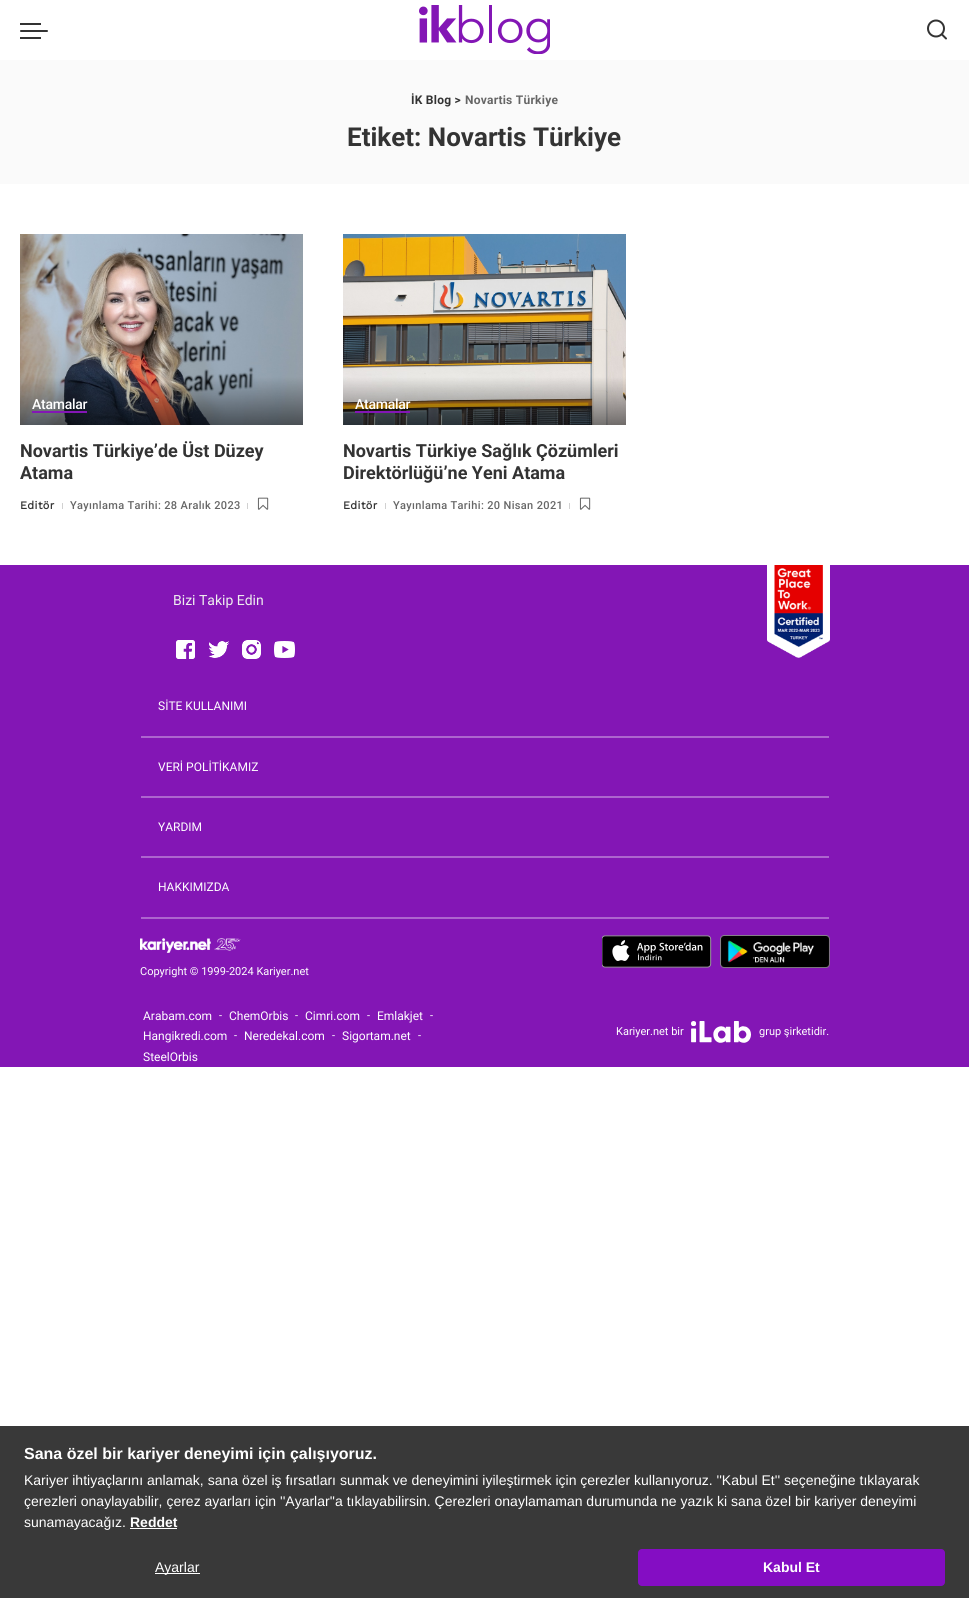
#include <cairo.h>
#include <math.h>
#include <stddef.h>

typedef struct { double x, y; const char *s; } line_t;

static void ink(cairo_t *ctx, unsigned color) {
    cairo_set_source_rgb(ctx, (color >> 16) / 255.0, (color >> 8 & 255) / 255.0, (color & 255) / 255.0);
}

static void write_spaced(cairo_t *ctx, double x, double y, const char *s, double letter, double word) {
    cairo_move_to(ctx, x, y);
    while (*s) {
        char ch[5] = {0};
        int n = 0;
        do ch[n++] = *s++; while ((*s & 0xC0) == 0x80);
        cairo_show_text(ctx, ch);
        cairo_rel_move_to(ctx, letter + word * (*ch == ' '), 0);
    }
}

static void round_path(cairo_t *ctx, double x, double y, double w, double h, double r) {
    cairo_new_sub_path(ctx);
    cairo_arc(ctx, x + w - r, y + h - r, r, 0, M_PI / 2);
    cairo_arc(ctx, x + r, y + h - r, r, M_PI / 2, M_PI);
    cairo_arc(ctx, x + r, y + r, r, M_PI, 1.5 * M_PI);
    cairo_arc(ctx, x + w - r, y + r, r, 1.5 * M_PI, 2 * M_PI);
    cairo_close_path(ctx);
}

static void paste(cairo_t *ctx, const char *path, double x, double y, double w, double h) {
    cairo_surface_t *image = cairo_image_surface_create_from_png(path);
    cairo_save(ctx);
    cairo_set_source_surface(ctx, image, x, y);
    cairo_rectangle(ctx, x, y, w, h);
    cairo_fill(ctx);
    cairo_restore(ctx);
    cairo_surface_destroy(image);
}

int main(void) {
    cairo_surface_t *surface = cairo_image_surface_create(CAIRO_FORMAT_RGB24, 969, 1598);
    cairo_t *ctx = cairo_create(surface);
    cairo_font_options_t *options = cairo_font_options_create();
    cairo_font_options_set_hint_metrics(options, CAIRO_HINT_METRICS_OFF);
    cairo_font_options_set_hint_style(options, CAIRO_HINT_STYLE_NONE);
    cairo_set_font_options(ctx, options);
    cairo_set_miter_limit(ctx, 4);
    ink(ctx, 0xFFFFFF);
    cairo_paint(ctx);
    ink(ctx, 0xFAFAFA);
    cairo_rectangle(ctx, 0, 60, 969, 124);
    cairo_fill(ctx);
    ink(ctx, 0x333333);
    round_path(ctx, 20, 30, 28, 2, 1);
    cairo_fill(ctx);
    cairo_rectangle(ctx, 20, 23, 21, 2);
    cairo_fill(ctx);
    cairo_rectangle(ctx, 20, 37, 21, 2);
    cairo_fill(ctx);
    paste(ctx, "media/1.png", 419, 5, 131, 49);
    paste(ctx, "media/2.png", 927, 19, 20, 21);
    cairo_select_font_face(ctx, "Roboto", CAIRO_FONT_SLANT_NORMAL, CAIRO_FONT_WEIGHT_BOLD);
    cairo_set_font_size(ctx, 12);
    write_spaced(ctx, 411, 104, "İK Blog >", 0.25, 0);
    ink(ctx, 0x666666);
    write_spaced(ctx, 465, 104, "Novartis Türkiye", 0.25, 0);
    cairo_set_font_size(ctx, 26);
    ink(ctx, 0x333333);
    cairo_move_to(ctx, 347, 146);
    cairo_show_text(ctx, "Etiket: Novartis Türkiye");
    paste(ctx, "media/3.png", 20, 234, 283, 191);
    ink(ctx, 0x8316B5);
    cairo_rectangle(ctx, 32, 411, 55, 2);
    cairo_fill(ctx);
    cairo_select_font_face(ctx, "Roboto Medium", CAIRO_FONT_SLANT_NORMAL, CAIRO_FONT_WEIGHT_NORMAL);
    cairo_set_font_size(ctx, 14);
    ink(ctx, 0xFFFFFF);
    write_spaced(ctx, 32, 409, "Atamalar", -0.25, 0);
    cairo_select_font_face(ctx, "Roboto", CAIRO_FONT_SLANT_NORMAL, CAIRO_FONT_WEIGHT_BOLD);
    cairo_set_font_size(ctx, 18);
    ink(ctx, 0x333333);
    cairo_move_to(ctx, 20, 457);
    cairo_show_text(ctx, "Novartis Türkiye’de Üst Düzey");
    cairo_move_to(ctx, 20, 479);
    cairo_show_text(ctx, "Atama");
    cairo_select_font_face(ctx, "Work Sans", CAIRO_FONT_SLANT_NORMAL, CAIRO_FONT_WEIGHT_BOLD);
    cairo_set_font_size(ctx, 11);
    write_spaced(ctx, 20, 509, "Editör", 0.35, 0);
    ink(ctx, 0xD1D1D1);
    cairo_rectangle(ctx, 62, 503, 1, 6);
    cairo_fill(ctx);
    cairo_select_font_face(ctx, "Roboto Medium", CAIRO_FONT_SLANT_NORMAL, CAIRO_FONT_WEIGHT_NORMAL);
    ink(ctx, 0x666666);
    write_spaced(ctx, 70, 509, "Yayınlama Tarihi: 28 Aralık 2023", 0.35, 0);
    ink(ctx, 0xD1D1D1);
    cairo_rectangle(ctx, 247, 503, 1, 6);
    cairo_fill(ctx);
    paste(ctx, "media/4.png", 257, 497, 12, 13);
    paste(ctx, "media/5.png", 343, 234, 283, 191);
    ink(ctx, 0x8316B5);
    cairo_rectangle(ctx, 355, 411, 55, 2);
    cairo_fill(ctx);
    cairo_set_font_size(ctx, 14);
    ink(ctx, 0xFFFFFF);
    write_spaced(ctx, 355, 409, "Atamalar", -0.25, 0);
    cairo_select_font_face(ctx, "Roboto", CAIRO_FONT_SLANT_NORMAL, CAIRO_FONT_WEIGHT_BOLD);
    cairo_set_font_size(ctx, 18);
    ink(ctx, 0x333333);
    cairo_move_to(ctx, 343, 457);
    cairo_show_text(ctx, "Novartis Türkiye Sağlık Çözümleri");
    cairo_move_to(ctx, 343, 479);
    cairo_show_text(ctx, "Direktörlüğü’ne Yeni Atama");
    cairo_select_font_face(ctx, "Work Sans", CAIRO_FONT_SLANT_NORMAL, CAIRO_FONT_WEIGHT_BOLD);
    cairo_set_font_size(ctx, 11);
    write_spaced(ctx, 343, 509, "Editör", 0.35, 0);
    ink(ctx, 0xD1D1D1);
    cairo_rectangle(ctx, 385, 503, 1, 6);
    cairo_fill(ctx);
    cairo_select_font_face(ctx, "Roboto Medium", CAIRO_FONT_SLANT_NORMAL, CAIRO_FONT_WEIGHT_NORMAL);
    ink(ctx, 0x666666);
    write_spaced(ctx, 393, 509, "Yayınlama Tarihi: 20 Nisan 2021", 0.35, 0);
    ink(ctx, 0xD1D1D1);
    cairo_rectangle(ctx, 569, 503, 1, 6);
    cairo_fill(ctx);
    paste(ctx, "media/4.png", 579, 497, 12, 13);
    ink(ctx, 0x8316B5);
    cairo_rectangle(ctx, 0, 565, 969, 502);
    cairo_fill(ctx);
    cairo_select_font_face(ctx, "Roboto", CAIRO_FONT_SLANT_NORMAL, CAIRO_FONT_WEIGHT_NORMAL);
    cairo_set_font_size(ctx, 14);
    ink(ctx, 0xEFEFEF);
    cairo_move_to(ctx, 173, 605);
    cairo_show_text(ctx, "Bizi Takip Edin");
    paste(ctx, "media/6.png", 176, 640, 19, 19);
    paste(ctx, "media/7.png", 208, 641, 21, 17);
    paste(ctx, "media/8.png", 242, 640, 19, 19);
    paste(ctx, "media/9.png", 274, 641, 21, 17);
    paste(ctx, "media/10.png", 767, 565, 63, 93);
    cairo_set_font_size(ctx, 12);
    ink(ctx, 0xFFFFFF);
    cairo_move_to(ctx, 158, 710);
    cairo_show_text(ctx, "SİTE KULLANIMI");
    ink(ctx, 0xAD65CE);
    cairo_rectangle(ctx, 141, 736, 688, 2);
    cairo_fill(ctx);
    ink(ctx, 0xFFFFFF);
    cairo_move_to(ctx, 158, 771);
    cairo_show_text(ctx, "VERİ POLİTİKAMIZ");
    ink(ctx, 0xAD65CE);
    cairo_rectangle(ctx, 141, 796, 688, 2);
    cairo_fill(ctx);
    ink(ctx, 0xFFFFFF);
    cairo_move_to(ctx, 158, 831);
    cairo_show_text(ctx, "YARDIM");
    ink(ctx, 0xAD65CE);
    cairo_rectangle(ctx, 141, 856, 688, 2);
    cairo_fill(ctx);
    ink(ctx, 0xFFFFFF);
    cairo_move_to(ctx, 158, 891);
    cairo_show_text(ctx, "HAKKIMIZDA");
    ink(ctx, 0xAD65CE);
    cairo_rectangle(ctx, 141, 917, 688, 2);
    cairo_fill(ctx);
    paste(ctx, "media/11.png", 602, 935, 110, 33);
    paste(ctx, "media/12.png", 720, 935, 110, 33);
    paste(ctx, "media/13.png", 140, 938, 101, 15);
    cairo_set_font_size(ctx, 11);
    ink(ctx, 0xFFFFFF);
    cairo_move_to(ctx, 140, 975);
    cairo_show_text(ctx, "Copyright © 1999-2024 Kariyer.net");
    cairo_set_font_size(ctx, 12);
    cairo_move_to(ctx, 143, 1020);
    cairo_show_text(ctx, "Arabam.com");
    cairo_set_font_size(ctx, 11);
    cairo_move_to(ctx, 219, 1019);
    cairo_show_text(ctx, "-");
    cairo_set_font_size(ctx, 12);
    cairo_move_to(ctx, 229, 1020);
    cairo_show_text(ctx, "ChemOrbis");
    cairo_set_font_size(ctx, 11);
    cairo_move_to(ctx, 295, 1019);
    cairo_show_text(ctx, "-");
    cairo_set_font_size(ctx, 12);
    cairo_move_to(ctx, 305, 1020);
    cairo_show_text(ctx, "Cimri.com");
    cairo_set_font_size(ctx, 11);
    cairo_move_to(ctx, 367, 1019);
    cairo_show_text(ctx, "-");
    cairo_set_font_size(ctx, 12);
    cairo_move_to(ctx, 377, 1020);
    cairo_show_text(ctx, "Emlakjet");
    cairo_set_font_size(ctx, 11);
    cairo_move_to(ctx, 430, 1019);
    cairo_show_text(ctx, "-");
    cairo_set_font_size(ctx, 12);
    cairo_move_to(ctx, 143, 1040);
    cairo_show_text(ctx, "Hangikredi.com");
    cairo_set_font_size(ctx, 11);
    cairo_move_to(ctx, 234, 1039);
    cairo_show_text(ctx, "-");
    cairo_set_font_size(ctx, 12);
    cairo_move_to(ctx, 244, 1040);
    cairo_show_text(ctx, "Neredekal.com");
    cairo_set_font_size(ctx, 11);
    cairo_move_to(ctx, 332, 1039);
    cairo_show_text(ctx, "-");
    cairo_set_font_size(ctx, 12);
    cairo_move_to(ctx, 342, 1040);
    cairo_show_text(ctx, "Sigortam.net");
    cairo_set_font_size(ctx, 11);
    cairo_move_to(ctx, 418, 1039);
    cairo_show_text(ctx, "-");
    cairo_set_font_size(ctx, 12);
    cairo_move_to(ctx, 143, 1061);
    cairo_show_text(ctx, "SteelOrbis");
    cairo_set_font_size(ctx, 11);
    cairo_move_to(ctx, 616, 1035);
    cairo_show_text(ctx, "Kariyer.net bir");
    paste(ctx, "media/14.png", 691, 1021, 60, 22);
    cairo_move_to(ctx, 759, 1035);
    cairo_show_text(ctx, "grup şirketidir.");
    ink(ctx, 0x393939);
    cairo_rectangle(ctx, 0, 1426, 969, 172);
    cairo_fill(ctx);
    cairo_select_font_face(ctx, "Liberation Sans", CAIRO_FONT_SLANT_NORMAL, CAIRO_FONT_WEIGHT_BOLD);
    cairo_set_font_size(ctx, 16);
    ink(ctx, 0xFFFFFF);
    cairo_move_to(ctx, 24, 1459);
    cairo_show_text(ctx, "Sana özel bir kariyer deneyimi için çalışıyoruz.");
    cairo_select_font_face(ctx, "Liberation Sans", CAIRO_FONT_SLANT_NORMAL, CAIRO_FONT_WEIGHT_NORMAL);
    cairo_set_font_size(ctx, 14);
    {
        static const line_t items[] = {
            {24, 1485, "Kariyer ihtiyaçlarını anlamak, sana özel iş fırsatları sunmak ve deneyimini iyileştirmek için çerezler kullanıyoruz. ''Kabul Et'' seçeneğine tıklayarak"},
            {24, 1506, "çerezleri onaylayabilir, çerez ayarları için ''Ayarlar''a tıklayabilirsin. Çerezleri onaylamaman durumunda ne yazık ki sana özel bir kariyer deneyimi"},
            {24, 1527, "sunamayacağız."},
        };
        for (size_t i = 0; i < sizeof items / sizeof *items; i++) {
            cairo_move_to(ctx, items[i].x, items[i].y);
            cairo_show_text(ctx, items[i].s);
        }
    }
    cairo_select_font_face(ctx, "Liberation Sans", CAIRO_FONT_SLANT_NORMAL, CAIRO_FONT_WEIGHT_BOLD);
    cairo_move_to(ctx, 130, 1527);
    cairo_show_text(ctx, "Reddet");
    cairo_rectangle(ctx, 130, 1528, 47, 1);
    cairo_fill(ctx);
    cairo_rectangle(ctx, 155, 1573, 45, 1);
    cairo_fill(ctx);
    cairo_select_font_face(ctx, "Liberation Sans", CAIRO_FONT_SLANT_NORMAL, CAIRO_FONT_WEIGHT_NORMAL);
    cairo_move_to(ctx, 155, 1572);
    cairo_show_text(ctx, "Ayarlar");
    ink(ctx, 0x840DC3);
    round_path(ctx, 638, 1549, 307, 37, 4);
    cairo_fill(ctx);
    cairo_select_font_face(ctx, "Liberation Sans", CAIRO_FONT_SLANT_NORMAL, CAIRO_FONT_WEIGHT_BOLD);
    ink(ctx, 0xFFFFFF);
    cairo_move_to(ctx, 763, 1572);
    cairo_show_text(ctx, "Kabul Et");
    cairo_surface_write_to_png(surface, "image.png");
    cairo_font_options_destroy(options);
    cairo_destroy(ctx);
    cairo_surface_destroy(surface);
    return 0;
}
